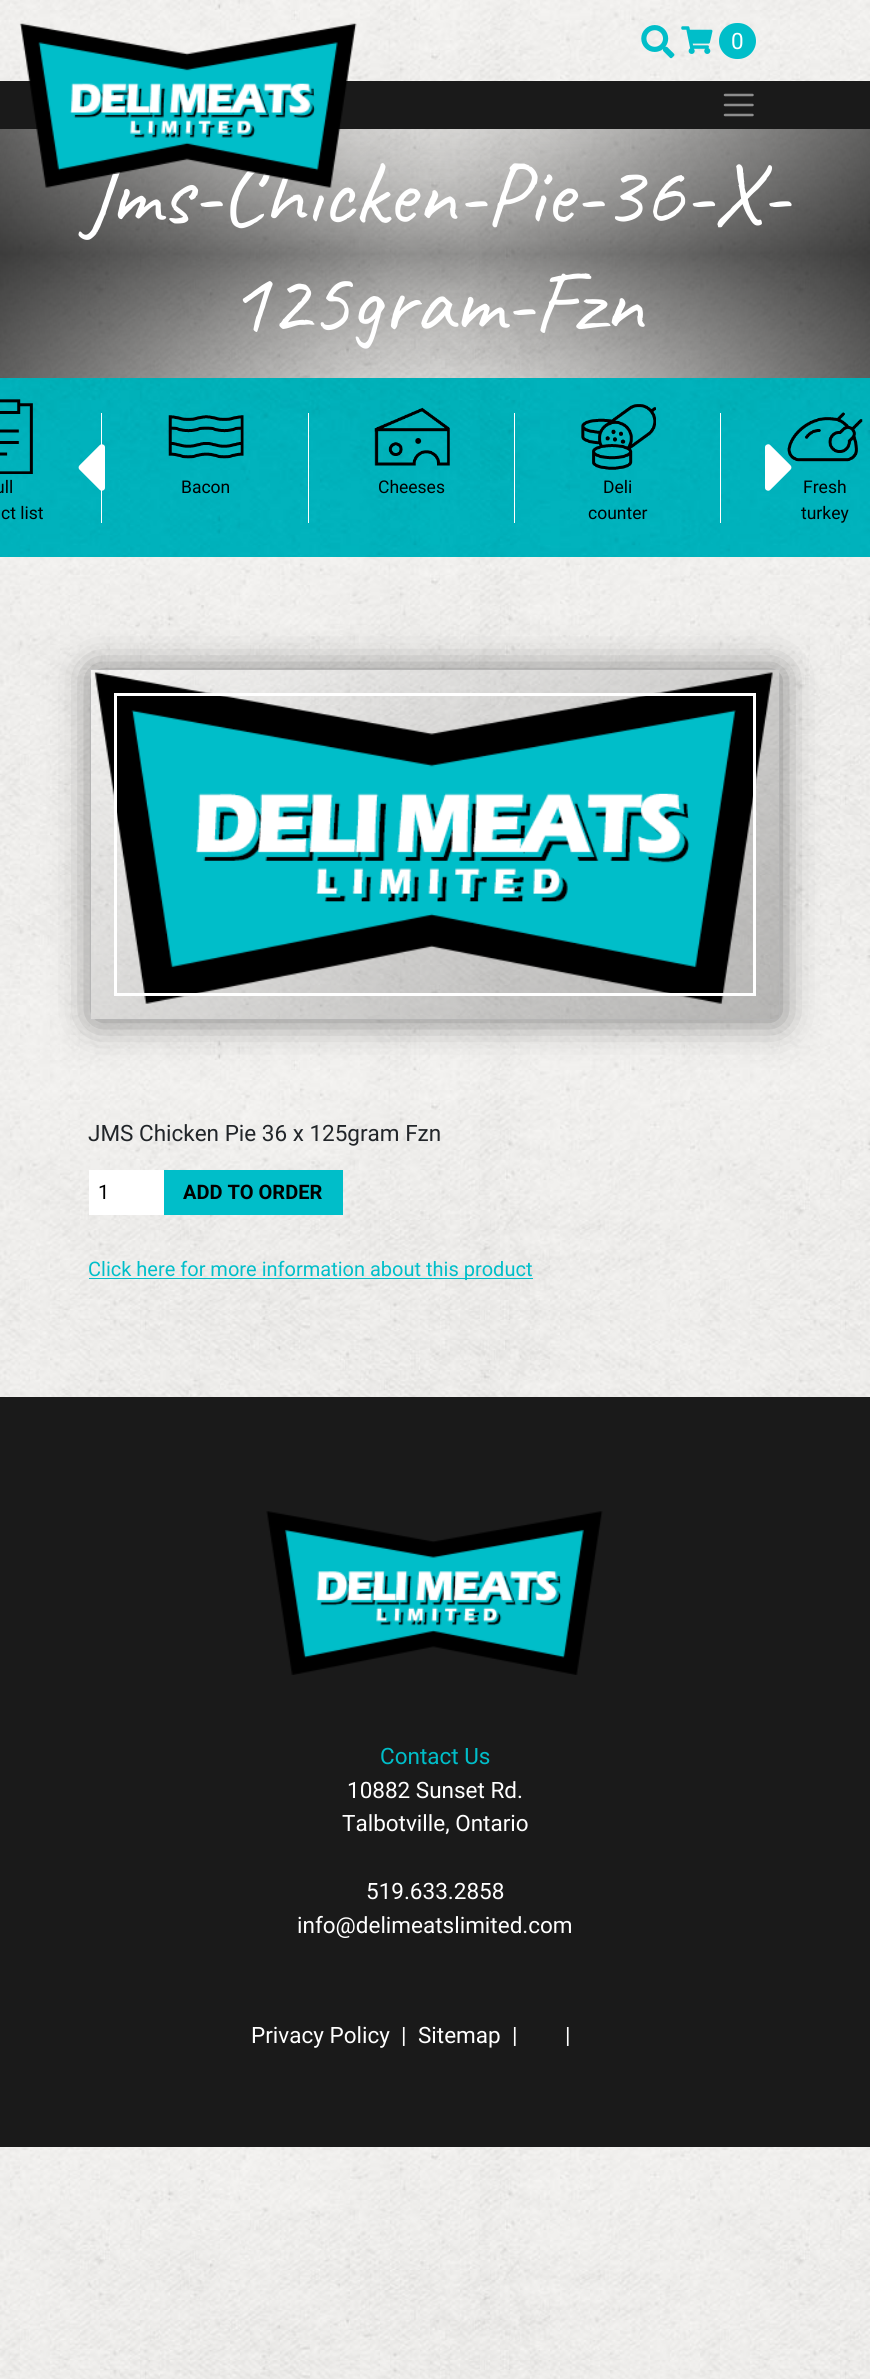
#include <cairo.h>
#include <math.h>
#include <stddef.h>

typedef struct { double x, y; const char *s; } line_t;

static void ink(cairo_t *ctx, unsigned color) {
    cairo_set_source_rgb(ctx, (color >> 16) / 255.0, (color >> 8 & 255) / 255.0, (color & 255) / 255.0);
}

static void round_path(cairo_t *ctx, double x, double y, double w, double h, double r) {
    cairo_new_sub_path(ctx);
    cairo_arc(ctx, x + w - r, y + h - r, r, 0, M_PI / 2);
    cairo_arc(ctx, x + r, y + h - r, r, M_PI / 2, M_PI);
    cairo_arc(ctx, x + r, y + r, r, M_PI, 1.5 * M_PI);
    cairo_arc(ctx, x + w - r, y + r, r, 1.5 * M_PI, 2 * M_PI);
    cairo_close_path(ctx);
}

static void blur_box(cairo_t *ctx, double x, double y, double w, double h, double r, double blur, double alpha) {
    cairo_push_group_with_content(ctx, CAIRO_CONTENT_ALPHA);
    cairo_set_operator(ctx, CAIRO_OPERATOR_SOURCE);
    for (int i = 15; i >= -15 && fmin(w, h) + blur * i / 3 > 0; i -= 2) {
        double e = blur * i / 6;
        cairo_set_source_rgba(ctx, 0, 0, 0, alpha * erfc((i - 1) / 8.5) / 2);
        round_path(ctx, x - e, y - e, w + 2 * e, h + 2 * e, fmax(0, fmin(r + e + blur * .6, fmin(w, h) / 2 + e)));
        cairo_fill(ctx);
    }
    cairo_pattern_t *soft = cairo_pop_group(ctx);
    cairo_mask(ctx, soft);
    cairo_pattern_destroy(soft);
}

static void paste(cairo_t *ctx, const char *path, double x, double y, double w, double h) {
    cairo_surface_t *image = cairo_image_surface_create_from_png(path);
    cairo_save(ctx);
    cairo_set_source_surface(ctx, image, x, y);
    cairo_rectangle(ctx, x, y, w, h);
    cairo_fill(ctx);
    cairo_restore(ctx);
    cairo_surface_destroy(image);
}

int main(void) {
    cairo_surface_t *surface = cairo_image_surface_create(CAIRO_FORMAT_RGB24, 870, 2379);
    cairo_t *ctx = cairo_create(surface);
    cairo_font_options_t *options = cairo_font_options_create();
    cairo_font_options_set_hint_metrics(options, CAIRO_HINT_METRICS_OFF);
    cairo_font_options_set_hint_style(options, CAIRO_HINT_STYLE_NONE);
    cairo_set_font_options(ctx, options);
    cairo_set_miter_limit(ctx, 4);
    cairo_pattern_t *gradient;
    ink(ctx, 0xFFFFFF);
    cairo_paint(ctx);
    paste(ctx, "media/1.png", 0, 0, 870, 2379);
    ink(ctx, 0x1A1A1A);
    cairo_rectangle(ctx, 0, 81, 870, 48);
    cairo_fill(ctx);
    paste(ctx, "media/5.png", 0, 129, 870, 249);
    cairo_select_font_face(ctx, "Caveat", CAIRO_FONT_SLANT_NORMAL, CAIRO_FONT_WEIGHT_NORMAL);
    cairo_set_font_size(ctx, 90);
    ink(ctx, 0xFFFFFF);
    cairo_move_to(ctx, 82, 223);
    cairo_show_text(ctx, "Jms-Chicken-Pie-36-X-");
    paste(ctx, "media/2.png", 19, 23, 338, 165);
    paste(ctx, "media/3.png", 641, 25, 34, 34);
    paste(ctx, "media/4.png", 681, 26, 32, 28);
    ink(ctx, 0x00BEC9);
    round_path(ctx, 719, 23, 37, 36, 18);
    cairo_fill(ctx);
    cairo_select_font_face(ctx, "Roboto", CAIRO_FONT_SLANT_NORMAL, CAIRO_FONT_WEIGHT_NORMAL);
    cairo_set_font_size(ctx, 22.5);
    ink(ctx, 0xFFFFFF);
    cairo_move_to(ctx, 731, 49);
    cairo_show_text(ctx, "0");
    cairo_new_path(ctx);
    cairo_move_to(ctx, 725, 95);
    cairo_line_to(ctx, 752.5, 95);
    cairo_move_to(ctx, 725, 105);
    cairo_line_to(ctx, 752.5, 105);
    cairo_move_to(ctx, 725, 115);
    cairo_line_to(ctx, 752.5, 115);
    ink(ctx, 0x8D8D8D);
    cairo_set_line_width(ctx, 2.5);
    cairo_set_line_cap(ctx, CAIRO_LINE_CAP_ROUND);
    cairo_stroke(ctx);
    cairo_select_font_face(ctx, "Caveat", CAIRO_FONT_SLANT_NORMAL, CAIRO_FONT_WEIGHT_NORMAL);
    cairo_set_font_size(ctx, 90);
    ink(ctx, 0xFFFFFF);
    cairo_move_to(ctx, 228, 331);
    cairo_show_text(ctx, "125gram-Fzn");
    paste(ctx, "media/6.png", 0, 378, 870, 179);
    cairo_rectangle(ctx, 101, 413, 1, 110);
    cairo_fill(ctx);
    paste(ctx, "media/7.png", 78, 444, 27, 47);
    paste(ctx, "media/13.png", 787, 412, 76, 50);
    paste(ctx, "media/8.png", 765, 444, 27, 47);
    paste(ctx, "media/9.png", 0, 399, 33, 75);
    cairo_select_font_face(ctx, "Roboto", CAIRO_FONT_SLANT_NORMAL, CAIRO_FONT_WEIGHT_NORMAL);
    cairo_set_font_size(ctx, 17.5);
    ink(ctx, 0x000000);
    cairo_move_to(ctx, -5, 493);
    cairo_show_text(ctx, "ull");
    cairo_move_to(ctx, 1, 519);
    cairo_show_text(ctx, "ct list");
    paste(ctx, "media/10.png", 168, 415, 76, 44);
    cairo_move_to(ctx, 181, 493);
    cairo_show_text(ctx, "Bacon");
    ink(ctx, 0xFFFFFF);
    cairo_rectangle(ctx, 308, 413, 1, 110);
    cairo_fill(ctx);
    paste(ctx, "media/11.png", 374, 407, 76, 59);
    ink(ctx, 0x000000);
    cairo_move_to(ctx, 378, 493);
    cairo_show_text(ctx, "Cheeses");
    ink(ctx, 0xFFFFFF);
    cairo_rectangle(ctx, 514, 413, 1, 110);
    cairo_fill(ctx);
    paste(ctx, "media/12.png", 581, 404, 75, 66);
    ink(ctx, 0x000000);
    cairo_move_to(ctx, 603, 493);
    cairo_show_text(ctx, "Deli");
    cairo_move_to(ctx, 588, 519);
    cairo_show_text(ctx, "counter");
    ink(ctx, 0xFFFFFF);
    cairo_rectangle(ctx, 720, 413, 1, 110);
    cairo_fill(ctx);
    ink(ctx, 0x000000);
    cairo_move_to(ctx, 803, 493);
    cairo_show_text(ctx, "Fresh");
    cairo_move_to(ctx, 801, 519);
    cairo_show_text(ctx, "turkey");
    cairo_rectangle(ctx, 90.5, 669.5, 689, 350);
    ink(ctx, 0xF2F2F2);
    cairo_set_line_width(ctx, 1);
    cairo_set_line_cap(ctx, CAIRO_LINE_CAP_BUTT);
    cairo_stroke(ctx);
    cairo_save(ctx);
    cairo_set_fill_rule(ctx, CAIRO_FILL_RULE_EVEN_ODD);
    cairo_new_path(ctx);
    cairo_move_to(ctx, 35, 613);
    cairo_line_to(ctx, 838, 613);
    cairo_line_to(ctx, 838, 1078);
    cairo_line_to(ctx, 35, 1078);
    cairo_close_path(ctx);
    cairo_move_to(ctx, 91, 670);
    cairo_line_to(ctx, 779, 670);
    cairo_line_to(ctx, 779, 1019);
    cairo_line_to(ctx, 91, 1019);
    cairo_close_path(ctx);
    cairo_clip(ctx);
    ink(ctx, 0x000000);
    blur_box(ctx, 93, 671, 687, 349, 0, 19, 0.5);
    cairo_restore(ctx);
    gradient = cairo_pattern_create_linear(233, 567, 637, 1122);
    cairo_pattern_add_color_stop_rgba(gradient, 0, 1, 1, 1, 0.25);
    cairo_pattern_add_color_stop_rgba(gradient, 1, 0, 0, 0, 0.25);
    cairo_set_source(ctx, gradient);
    cairo_pattern_destroy(gradient);
    cairo_rectangle(ctx, 91, 670, 688, 349);
    cairo_fill(ctx);
    paste(ctx, "media/14.png", 94, 672, 679, 332);
    cairo_rectangle(ctx, 115.5, 694.5, 639, 300);
    ink(ctx, 0xFFFFFF);
    cairo_set_line_width(ctx, 3);
    cairo_stroke(ctx);
    cairo_set_font_size(ctx, 22.5);
    ink(ctx, 0x212529);
    cairo_move_to(ctx, 88, 1141);
    cairo_show_text(ctx, "JMS Chicken Pie 36 x 125gram Fzn");
    ink(ctx, 0xFFFFFF);
    cairo_rectangle(ctx, 89, 1170, 75, 45);
    cairo_fill(ctx);
    cairo_set_font_size(ctx, 20);
    ink(ctx, 0x000000);
    cairo_move_to(ctx, 98, 1199);
    cairo_show_text(ctx, "1");
    ink(ctx, 0x00BEC9);
    cairo_rectangle(ctx, 164, 1170, 179, 45);
    cairo_fill(ctx);
    cairo_select_font_face(ctx, "Roboto", CAIRO_FONT_SLANT_NORMAL, CAIRO_FONT_WEIGHT_BOLD);
    ink(ctx, 0x000000);
    cairo_move_to(ctx, 183, 1199);
    cairo_show_text(ctx, "ADD TO ORDER");
    ink(ctx, 0x00BEC9);
    cairo_rectangle(ctx, 89, 1278, 444, 1);
    cairo_fill(ctx);
    cairo_select_font_face(ctx, "Roboto", CAIRO_FONT_SLANT_NORMAL, CAIRO_FONT_WEIGHT_NORMAL);
    cairo_move_to(ctx, 88, 1276);
    cairo_show_text(ctx, "Click here for more information about this product");
    ink(ctx, 0x1A1A1A);
    cairo_rectangle(ctx, 0, 1397, 870, 750);
    cairo_fill(ctx);
    paste(ctx, "media/15.png", 266, 1511, 337, 164);
    cairo_set_font_size(ctx, 22.5);
    ink(ctx, 0x00BEC9);
    cairo_move_to(ctx, 380, 1764);
    cairo_show_text(ctx, "Contact Us");
    ink(ctx, 0xFFFFFF);
    {
        static const line_t items[] = {
            {347, 1798, "10882 Sunset Rd."},
            {342, 1831, "Talbotville, Ontario"},
            {366, 1899, "519.633.2858"},
            {297, 1933, "info@delimeatslimited.com"},
            {251, 2043, "Privacy Policy  |"},
            {418, 2043, "Sitemap  |"},
            {565, 2043, "|"},
        };
        for (size_t i = 0; i < sizeof items / sizeof *items; i++) {
            cairo_move_to(ctx, items[i].x, items[i].y);
            cairo_show_text(ctx, items[i].s);
        }
    }
    cairo_surface_write_to_png(surface, "image.png");
    cairo_font_options_destroy(options);
    cairo_destroy(ctx);
    cairo_surface_destroy(surface);
    return 0;
}
